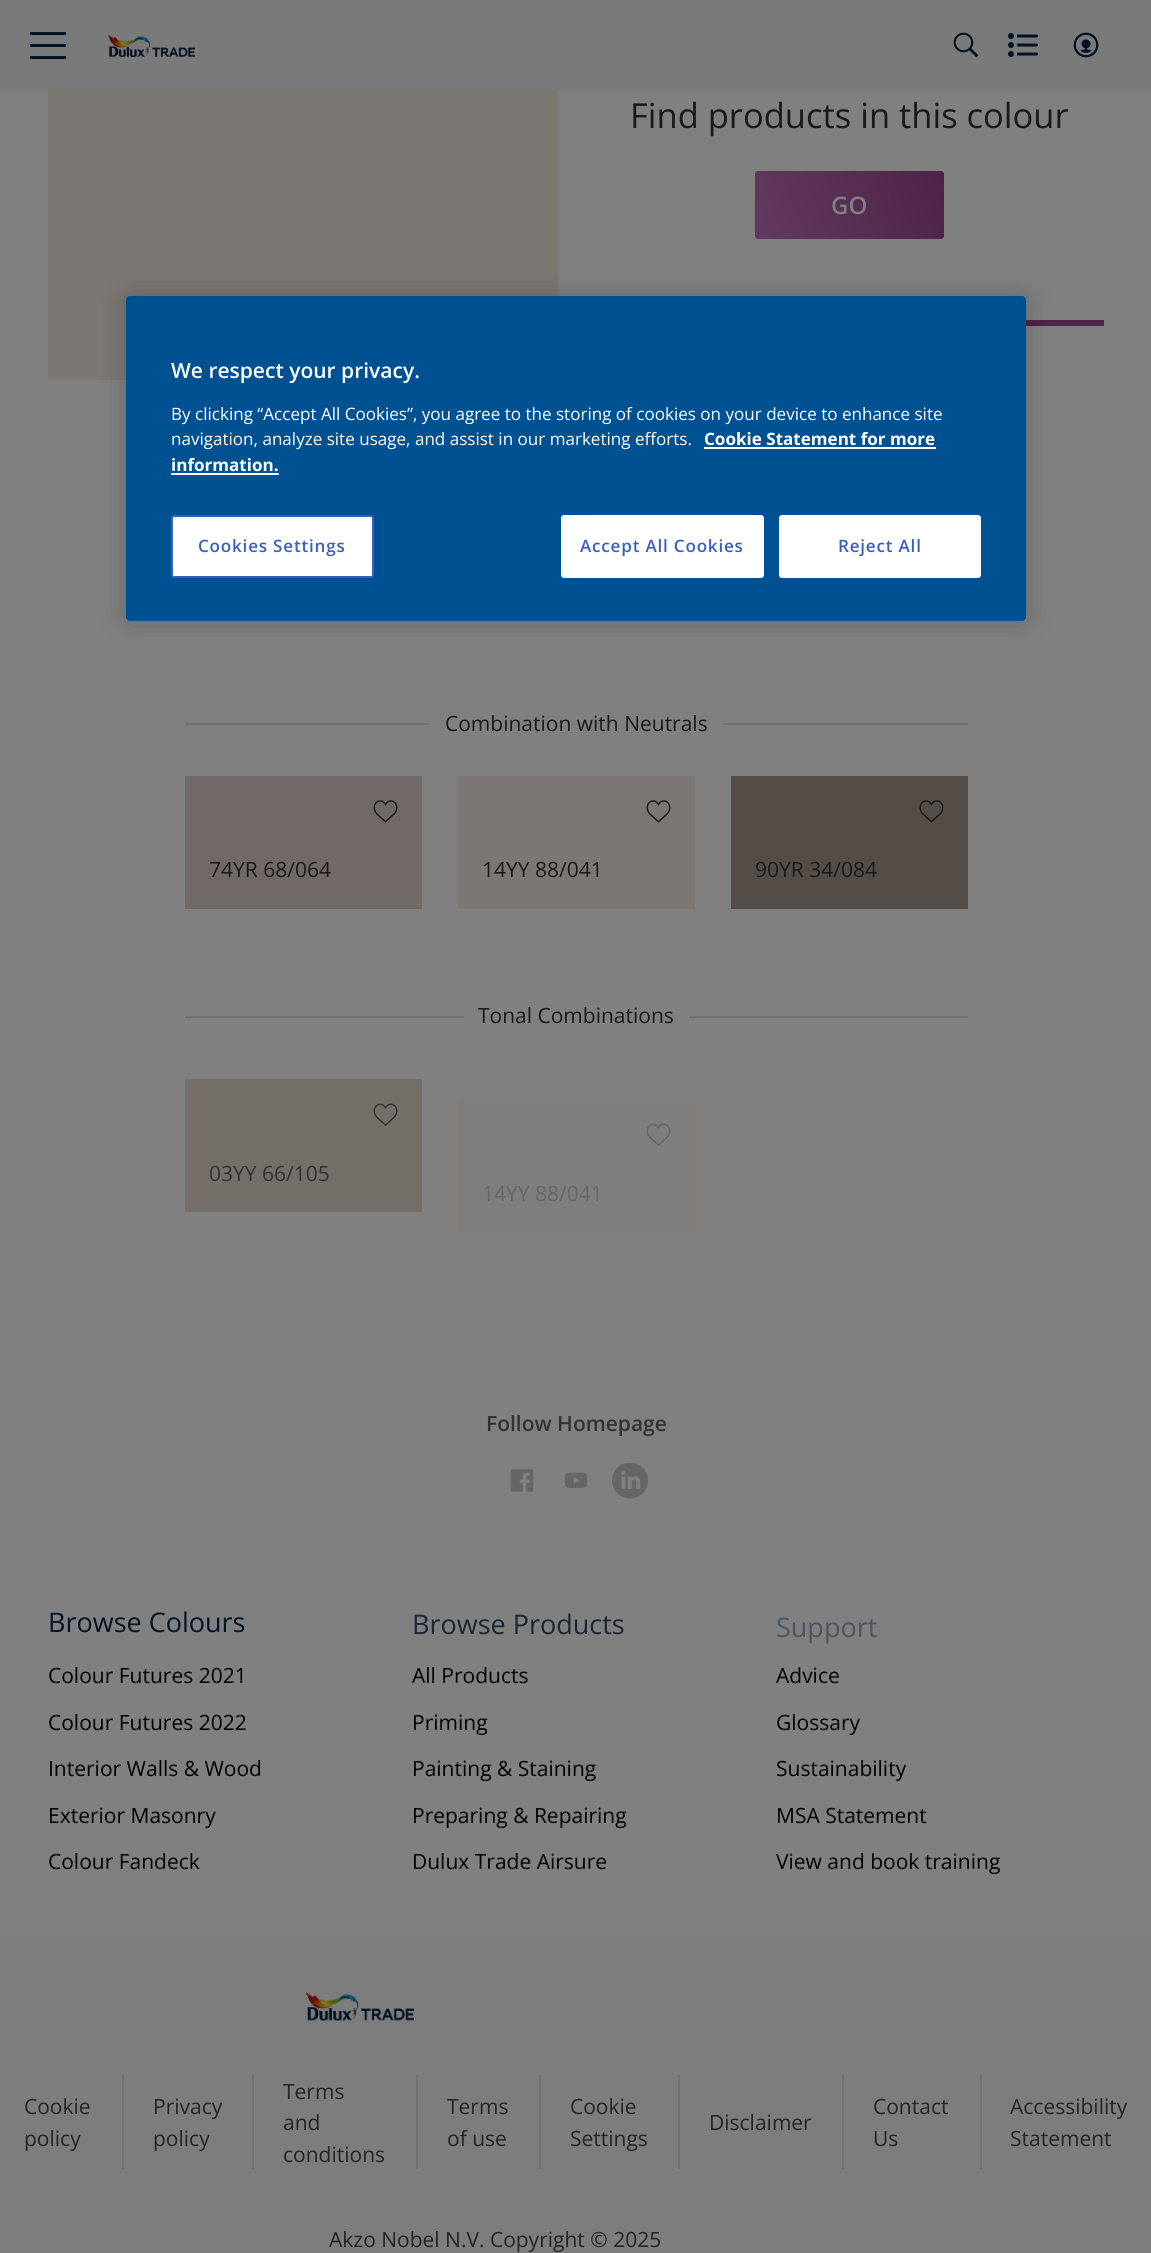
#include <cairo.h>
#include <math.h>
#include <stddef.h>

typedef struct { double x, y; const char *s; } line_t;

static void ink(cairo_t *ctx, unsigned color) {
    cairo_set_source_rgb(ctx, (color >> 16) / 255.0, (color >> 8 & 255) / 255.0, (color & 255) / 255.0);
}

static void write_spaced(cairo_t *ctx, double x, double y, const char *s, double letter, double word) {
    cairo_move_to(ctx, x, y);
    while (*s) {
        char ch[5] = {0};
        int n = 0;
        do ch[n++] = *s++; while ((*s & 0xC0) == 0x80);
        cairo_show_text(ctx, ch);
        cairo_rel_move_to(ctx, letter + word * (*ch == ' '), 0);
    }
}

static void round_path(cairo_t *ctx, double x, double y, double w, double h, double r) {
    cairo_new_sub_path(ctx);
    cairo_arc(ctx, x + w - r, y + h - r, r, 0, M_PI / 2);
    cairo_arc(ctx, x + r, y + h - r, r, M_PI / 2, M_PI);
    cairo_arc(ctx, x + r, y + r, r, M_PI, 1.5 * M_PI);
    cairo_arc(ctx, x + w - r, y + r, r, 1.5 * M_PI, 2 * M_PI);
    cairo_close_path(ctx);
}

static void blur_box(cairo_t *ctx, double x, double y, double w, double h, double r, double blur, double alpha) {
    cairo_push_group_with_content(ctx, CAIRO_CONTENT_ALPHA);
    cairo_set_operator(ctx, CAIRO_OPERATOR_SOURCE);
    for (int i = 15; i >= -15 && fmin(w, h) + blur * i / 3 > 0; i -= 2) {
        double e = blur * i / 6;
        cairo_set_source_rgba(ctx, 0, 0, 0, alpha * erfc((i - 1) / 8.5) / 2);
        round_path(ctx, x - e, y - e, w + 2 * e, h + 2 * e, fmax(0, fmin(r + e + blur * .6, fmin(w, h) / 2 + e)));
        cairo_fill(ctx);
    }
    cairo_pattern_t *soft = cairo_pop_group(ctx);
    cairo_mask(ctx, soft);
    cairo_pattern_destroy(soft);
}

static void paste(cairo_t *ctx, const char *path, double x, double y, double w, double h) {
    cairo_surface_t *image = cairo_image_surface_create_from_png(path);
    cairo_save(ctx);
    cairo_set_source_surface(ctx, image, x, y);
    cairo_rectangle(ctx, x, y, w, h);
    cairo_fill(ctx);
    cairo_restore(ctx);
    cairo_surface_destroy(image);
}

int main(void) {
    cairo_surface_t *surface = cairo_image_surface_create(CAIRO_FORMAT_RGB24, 1151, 2253);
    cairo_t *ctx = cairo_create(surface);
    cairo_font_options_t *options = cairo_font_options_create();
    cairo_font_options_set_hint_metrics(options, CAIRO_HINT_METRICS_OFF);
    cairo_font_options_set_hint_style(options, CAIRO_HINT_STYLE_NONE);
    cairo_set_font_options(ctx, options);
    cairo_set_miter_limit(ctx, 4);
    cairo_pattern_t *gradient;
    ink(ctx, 0x808080);
    cairo_paint(ctx);
    ink(ctx, 0x7A7A7A);
    cairo_rectangle(ctx, 0, 0, 1151, 90);
    cairo_fill(ctx);
    ink(ctx, 0x001124);
    round_path(ctx, 30, 44, 36, 3, 1.5);
    cairo_fill(ctx);
    cairo_rectangle(ctx, 30, 32, 36, 3);
    cairo_fill(ctx);
    cairo_rectangle(ctx, 30, 56, 36, 3);
    cairo_fill(ctx);
    paste(ctx, "media/1.png", 108, 34, 87, 23);
    paste(ctx, "media/2.png", 953, 32, 26, 26);
    paste(ctx, "media/3.png", 1008, 33, 30, 24);
    paste(ctx, "media/4.png", 1073, 32, 26, 26);
    ink(ctx, 0x7B7773);
    cairo_rectangle(ctx, 48, 90, 510, 290);
    cairo_fill(ctx);
    cairo_select_font_face(ctx, "Open Sans", CAIRO_FONT_SLANT_NORMAL, CAIRO_FONT_WEIGHT_NORMAL);
    cairo_set_font_size(ctx, 34.5);
    ink(ctx, 0x1A1A1A);
    cairo_move_to(ctx, 630, 128);
    cairo_show_text(ctx, "Find products in this colour");
    gradient = cairo_pattern_create_linear(755, 239, 943, 170);
    cairo_pattern_add_color_stop_rgba(gradient, 0.05, 0.373, 0.224, 0.357, 1);
    cairo_pattern_add_color_stop_rgba(gradient, 1, 0.302, 0.141, 0.286, 1);
    cairo_set_source(ctx, gradient);
    cairo_pattern_destroy(gradient);
    round_path(ctx, 755, 171, 189, 68, 3);
    cairo_fill(ctx);
    cairo_select_font_face(ctx, "Open Sans SemiBold", CAIRO_FONT_SLANT_NORMAL, CAIRO_FONT_WEIGHT_NORMAL);
    cairo_set_font_size(ctx, 24);
    ink(ctx, 0x808080);
    cairo_move_to(ctx, 831, 214);
    cairo_show_text(ctx, "GO");
    ink(ctx, 0x4D2449);
    cairo_rectangle(ctx, 1026, 320, 78, 6);
    cairo_fill(ctx);
    ink(ctx, 0x717171);
    cairo_rectangle(ctx, 185, 723, 244, 2);
    cairo_fill(ctx);
    cairo_select_font_face(ctx, "Open Sans", CAIRO_FONT_SLANT_NORMAL, CAIRO_FONT_WEIGHT_NORMAL);
    cairo_set_font_size(ctx, 21);
    ink(ctx, 0x1A1A1A);
    cairo_move_to(ctx, 445, 731);
    cairo_show_text(ctx, "Combination with Neutrals");
    ink(ctx, 0x717171);
    cairo_rectangle(ctx, 723, 723, 245, 2);
    cairo_fill(ctx);
    ink(ctx, 0x716965);
    cairo_rectangle(ctx, 185, 776, 237, 133);
    cairo_fill(ctx);
    paste(ctx, "media/5.png", 373, 800, 25, 23);
    ink(ctx, 0x1A1A1A);
    cairo_move_to(ctx, 209, 877);
    cairo_show_text(ctx, "74YR 68/064");
    ink(ctx, 0x7B7773);
    cairo_rectangle(ctx, 458, 776, 237, 133);
    cairo_fill(ctx);
    paste(ctx, "media/6.png", 646, 800, 25, 23);
    ink(ctx, 0x1A1A1A);
    cairo_move_to(ctx, 482, 877);
    cairo_show_text(ctx, "14YY 88/041");
    ink(ctx, 0x544D47);
    cairo_rectangle(ctx, 731, 776, 237, 133);
    cairo_fill(ctx);
    paste(ctx, "media/7.png", 919, 800, 25, 23);
    ink(ctx, 0x1A1A1A);
    cairo_move_to(ctx, 755, 877);
    cairo_show_text(ctx, "90YR 34/084");
    ink(ctx, 0x717171);
    cairo_rectangle(ctx, 185, 1016, 279, 2);
    cairo_fill(ctx);
    ink(ctx, 0x1A1A1A);
    cairo_move_to(ctx, 478, 1023);
    cairo_show_text(ctx, "Tonal Combinations");
    ink(ctx, 0x717171);
    cairo_rectangle(ctx, 689, 1016, 279, 2);
    cairo_fill(ctx);
    ink(ctx, 0x756F69);
    cairo_rectangle(ctx, 185, 1079, 237, 133);
    cairo_fill(ctx);
    paste(ctx, "media/8.png", 373, 1103, 25, 23);
    ink(ctx, 0x333333);
    cairo_move_to(ctx, 209, 1181);
    cairo_show_text(ctx, "03YY 66/105");
    ink(ctx, 0x7F7E7D);
    cairo_rectangle(ctx, 458, 1100, 237, 133);
    cairo_fill(ctx);
    paste(ctx, "media/9.png", 646, 1123, 25, 23);
    ink(ctx, 0x676767);
    cairo_move_to(ctx, 482, 1201);
    cairo_show_text(ctx, "14YY 88/041");
    cairo_select_font_face(ctx, "Open Sans SemiBold", CAIRO_FONT_SLANT_NORMAL, CAIRO_FONT_WEIGHT_NORMAL);
    ink(ctx, 0x333333);
    cairo_move_to(ctx, 486, 1431);
    cairo_show_text(ctx, "Follow Homepage");
    paste(ctx, "media/10.png", 510, 1469, 24, 23);
    paste(ctx, "media/11.png", 564, 1472, 24, 16);
    paste(ctx, "media/12.png", 612, 1463, 36, 36);
    cairo_select_font_face(ctx, "Open Sans", CAIRO_FONT_SLANT_NORMAL, CAIRO_FONT_WEIGHT_NORMAL);
    cairo_set_font_size(ctx, 27);
    ink(ctx, 0x021325);
    cairo_move_to(ctx, 48, 1632);
    cairo_show_text(ctx, "Browse Colours");
    cairo_set_font_size(ctx, 21);
    ink(ctx, 0x000000);
    {
        static const line_t items[] = {
            {48, 1683, "Colour Futures 2021"},
            {48, 1730, "Colour Futures 2022"},
            {48, 1776, "Interior Walls & Wood"},
            {48, 1823, "Exterior Masonry"},
            {48, 1869, "Colour Fandeck"},
        };
        for (size_t i = 0; i < sizeof items / sizeof *items; i++) {
            cairo_move_to(ctx, items[i].x, items[i].y);
            cairo_show_text(ctx, items[i].s);
        }
    }
    cairo_set_font_size(ctx, 27);
    ink(ctx, 0x1A2737);
    cairo_move_to(ctx, 412, 1634);
    cairo_show_text(ctx, "Browse Products");
    cairo_set_font_size(ctx, 21);
    ink(ctx, 0x000000);
    {
        static const line_t items[] = {
            {412, 1683, "All Products"},
            {412, 1730, "Priming"},
            {412, 1776, "Painting & Staining"},
            {412, 1823, "Preparing & Repairing"},
            {412, 1869, "Dulux Trade Airsure"},
        };
        for (size_t i = 0; i < sizeof items / sizeof *items; i++) {
            cairo_move_to(ctx, items[i].x, items[i].y);
            cairo_show_text(ctx, items[i].s);
        }
    }
    cairo_set_font_size(ctx, 27);
    ink(ctx, 0x4E555C);
    cairo_move_to(ctx, 776, 1637);
    cairo_show_text(ctx, "Support");
    cairo_set_font_size(ctx, 21);
    ink(ctx, 0x000000);
    {
        static const line_t items[] = {
            {776, 1683, "Advice"},
            {776, 1730, "Glossary"},
            {776, 1776, "Sustainability"},
            {776, 1823, "MSA Statement"},
            {776, 1869, "View and book training"},
        };
        for (size_t i = 0; i < sizeof items / sizeof *items; i++) {
            cairo_move_to(ctx, items[i].x, items[i].y);
            cairo_show_text(ctx, items[i].s);
        }
    }
    ink(ctx, 0x7D7D7D);
    cairo_rectangle(ctx, 0, 1938, 1151, 315);
    cairo_fill(ctx);
    paste(ctx, "media/13.png", 306, 1992, 108, 29);
    ink(ctx, 0x717171);
    cairo_rectangle(ctx, 122, 2075, 2, 94);
    cairo_fill(ctx);
    ink(ctx, 0x252525);
    cairo_move_to(ctx, 24, 2114);
    cairo_show_text(ctx, "Cookie");
    cairo_move_to(ctx, 24, 2146);
    cairo_show_text(ctx, "policy");
    ink(ctx, 0x717171);
    cairo_rectangle(ctx, 252, 2075, 2, 94);
    cairo_fill(ctx);
    ink(ctx, 0x252525);
    cairo_move_to(ctx, 153, 2114);
    cairo_show_text(ctx, "Privacy");
    cairo_move_to(ctx, 153, 2146);
    cairo_show_text(ctx, "policy");
    ink(ctx, 0x717171);
    cairo_rectangle(ctx, 416, 2075, 2, 94);
    cairo_fill(ctx);
    ink(ctx, 0x252525);
    {
        static const line_t items[] = {
            {283, 2099, "Terms"},
            {283, 2130, "and"},
            {283, 2162, "conditions"},
        };
        for (size_t i = 0; i < sizeof items / sizeof *items; i++) {
            cairo_move_to(ctx, items[i].x, items[i].y);
            cairo_show_text(ctx, items[i].s);
        }
    }
    ink(ctx, 0x717171);
    cairo_rectangle(ctx, 539, 2075, 2, 94);
    cairo_fill(ctx);
    ink(ctx, 0x252525);
    cairo_move_to(ctx, 447, 2114);
    cairo_show_text(ctx, "Terms");
    cairo_move_to(ctx, 447, 2146);
    cairo_show_text(ctx, "of use");
    ink(ctx, 0x717171);
    cairo_rectangle(ctx, 678, 2075, 2, 94);
    cairo_fill(ctx);
    ink(ctx, 0x252525);
    cairo_move_to(ctx, 570, 2114);
    cairo_show_text(ctx, "Cookie");
    cairo_move_to(ctx, 570, 2146);
    cairo_show_text(ctx, "Settings");
    ink(ctx, 0x717171);
    cairo_rectangle(ctx, 842, 2075, 2, 94);
    cairo_fill(ctx);
    ink(ctx, 0x252525);
    cairo_move_to(ctx, 709, 2130);
    cairo_show_text(ctx, "Disclaimer");
    ink(ctx, 0x717171);
    cairo_rectangle(ctx, 980, 2075, 2, 94);
    cairo_fill(ctx);
    ink(ctx, 0x252525);
    {
        static const line_t items[] = {
            {873, 2114, "Contact"},
            {873, 2146, "Us"},
            {1010, 2114, "Accessibility"},
            {1010, 2146, "Statement"},
            {329, 2247, "Akzo Nobel N.V. Copyright © 2025"},
        };
        for (size_t i = 0; i < sizeof items / sizeof *items; i++) {
            cairo_move_to(ctx, items[i].x, items[i].y);
            cairo_show_text(ctx, items[i].s);
        }
    }
    ink(ctx, 0x000000);
    blur_box(ctx, 126, 296, 900, 325, 4, 13.5, 0.2);
    ink(ctx, 0x005192);
    round_path(ctx, 126, 296, 900, 325, 4);
    cairo_fill(ctx);
    cairo_select_font_face(ctx, "Open Sans SemiBold", CAIRO_FONT_SLANT_NORMAL, CAIRO_FONT_WEIGHT_NORMAL);
    ink(ctx, 0xFFFFFF);
    cairo_move_to(ctx, 171, 378);
    cairo_show_text(ctx, "We respect your privacy.");
    cairo_select_font_face(ctx, "Open Sans", CAIRO_FONT_SLANT_NORMAL, CAIRO_FONT_WEIGHT_NORMAL);
    cairo_set_font_size(ctx, 17.05);
    cairo_move_to(ctx, 171, 420);
    cairo_show_text(ctx, "By clicking “Accept All Cookies”, you agree to the storing of cookies on your device to enhance site");
    cairo_move_to(ctx, 171, 445);
    cairo_show_text(ctx, "navigation, analyze site usage, and assist in our marketing efforts.");
    cairo_select_font_face(ctx, "Open Sans", CAIRO_FONT_SLANT_NORMAL, CAIRO_FONT_WEIGHT_BOLD);
    cairo_move_to(ctx, 704, 445);
    cairo_show_text(ctx, "Cookie Statement for more");
    ink(ctx, 0xFAFBFF);
    cairo_rectangle(ctx, 704, 447, 232, 2);
    cairo_fill(ctx);
    ink(ctx, 0xFFFFFF);
    cairo_move_to(ctx, 171, 471);
    cairo_show_text(ctx, "information.");
    ink(ctx, 0xFAFBFF);
    cairo_rectangle(ctx, 171, 473, 108, 2);
    cairo_fill(ctx);
    ink(ctx, 0xFFFFFF);
    round_path(ctx, 172, 516, 201, 61, 2);
    cairo_fill_preserve(ctx);
    ink(ctx, 0x3860BE);
    cairo_stroke(ctx);
    cairo_select_font_face(ctx, "Open Sans SemiBold", CAIRO_FONT_SLANT_NORMAL, CAIRO_FONT_WEIGHT_NORMAL);
    write_spaced(ctx, 198, 552, "Cookies Settings", 0.8, 0);
    ink(ctx, 0xFFFFFF);
    round_path(ctx, 562, 516, 201, 61, 2);
    cairo_fill_preserve(ctx);
    cairo_stroke(ctx);
    ink(ctx, 0x3860BE);
    write_spaced(ctx, 580, 552, "Accept All Cookies", 0.8, 0);
    ink(ctx, 0xFFFFFF);
    round_path(ctx, 780, 516, 200, 61, 2);
    cairo_fill_preserve(ctx);
    cairo_stroke(ctx);
    ink(ctx, 0x3860BE);
    write_spaced(ctx, 838, 552, "Reject All", 0.8, 0);
    cairo_surface_write_to_png(surface, "image.png");
    cairo_font_options_destroy(options);
    cairo_destroy(ctx);
    cairo_surface_destroy(surface);
    return 0;
}
